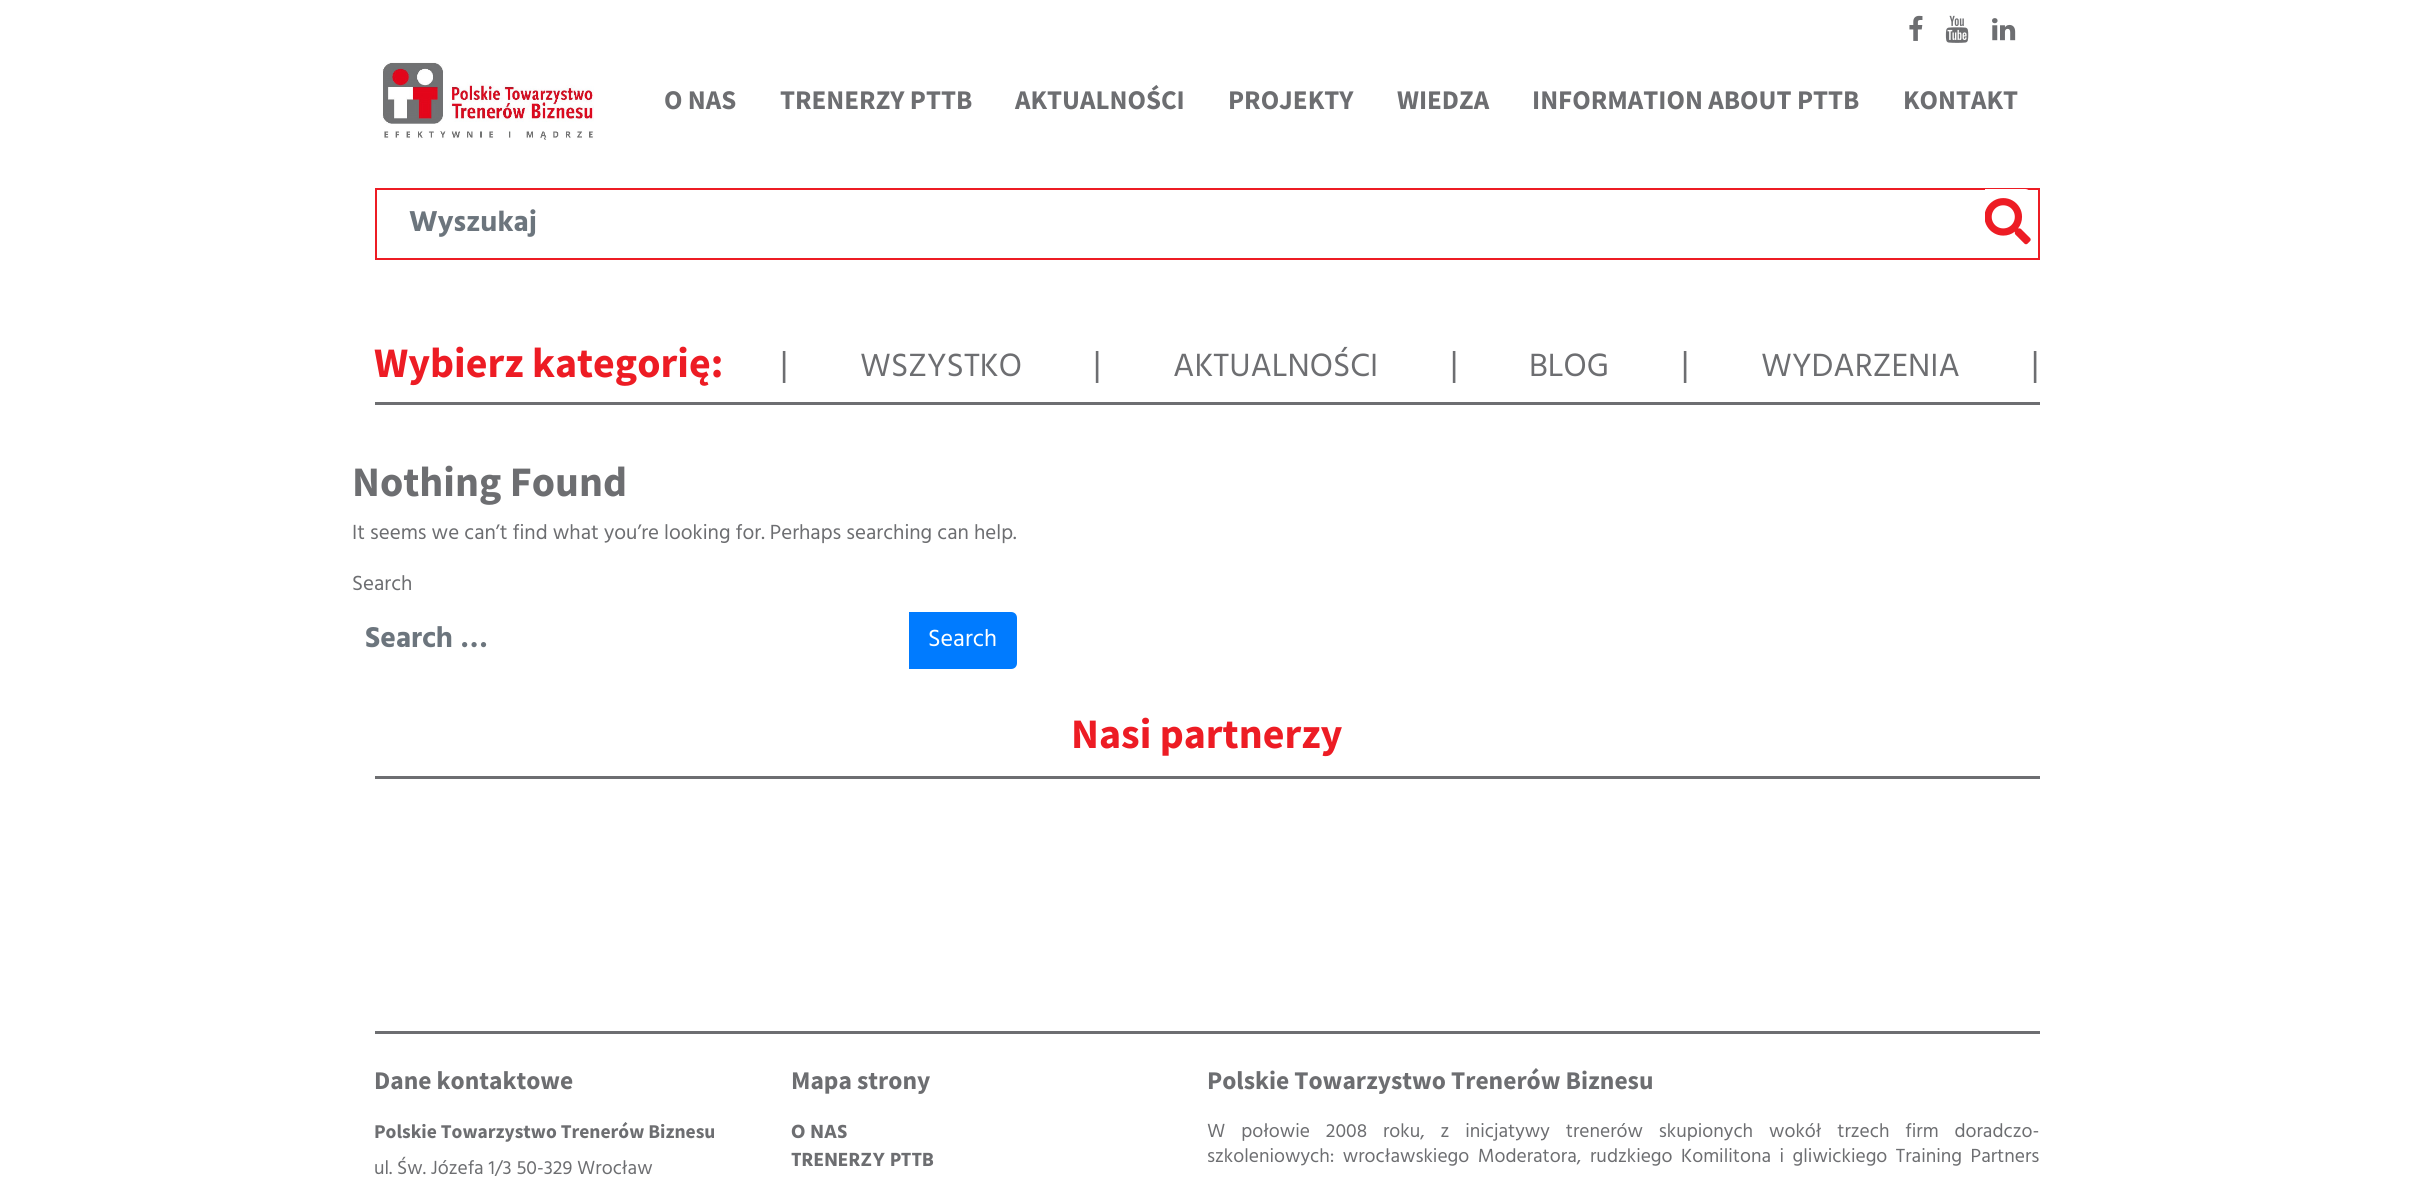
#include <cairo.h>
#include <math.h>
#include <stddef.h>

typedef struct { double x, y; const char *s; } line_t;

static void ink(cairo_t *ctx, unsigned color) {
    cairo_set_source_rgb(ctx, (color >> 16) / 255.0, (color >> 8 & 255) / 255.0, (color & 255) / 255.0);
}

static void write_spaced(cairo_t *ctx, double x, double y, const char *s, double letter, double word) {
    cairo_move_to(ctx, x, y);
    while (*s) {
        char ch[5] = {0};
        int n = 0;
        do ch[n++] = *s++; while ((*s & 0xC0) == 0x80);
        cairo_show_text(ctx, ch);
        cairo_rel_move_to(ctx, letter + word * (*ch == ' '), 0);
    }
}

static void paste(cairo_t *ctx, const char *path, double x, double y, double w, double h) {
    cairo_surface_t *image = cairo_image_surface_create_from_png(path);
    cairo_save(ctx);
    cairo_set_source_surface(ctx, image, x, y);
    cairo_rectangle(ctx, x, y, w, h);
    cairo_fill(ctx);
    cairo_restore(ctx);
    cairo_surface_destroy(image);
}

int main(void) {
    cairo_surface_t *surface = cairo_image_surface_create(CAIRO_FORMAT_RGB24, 2413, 1177);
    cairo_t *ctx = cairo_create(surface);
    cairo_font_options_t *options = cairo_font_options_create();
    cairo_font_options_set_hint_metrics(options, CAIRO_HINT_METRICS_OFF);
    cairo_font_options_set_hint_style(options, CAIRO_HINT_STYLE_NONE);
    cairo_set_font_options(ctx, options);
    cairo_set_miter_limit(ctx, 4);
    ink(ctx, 0xFFFFFF);
    cairo_paint(ctx);
    paste(ctx, "media/1.png", 1909, 15, 14, 26);
    paste(ctx, "media/2.png", 1945, 15, 24, 28);
    paste(ctx, "media/3.png", 1992, 18, 24, 23);
    paste(ctx, "media/4.png", 382, 62, 212, 78);
    cairo_select_font_face(ctx, "Source Sans Pro", CAIRO_FONT_SLANT_NORMAL, CAIRO_FONT_WEIGHT_BOLD);
    cairo_set_font_size(ctx, 27);
    ink(ctx, 0x6D6E71);
    {
        static const line_t items[] = {
            {664, 109, "O NAS"},
            {780, 109, "TRENERZY PTTB"},
            {1015, 109, "AKTUALNOŚCI"},
            {1228, 109, "PROJEKTY"},
            {1397, 109, "WIEDZA"},
            {1532, 109, "INFORMATION ABOUT PTTB"},
            {1903, 109, "KONTAKT"},
        };
        for (size_t i = 0; i < sizeof items / sizeof *items; i++) {
            cairo_move_to(ctx, items[i].x, items[i].y);
            cairo_show_text(ctx, items[i].s);
        }
    }
    cairo_rectangle(ctx, 376, 189, 1663, 70);
    ink(ctx, 0xED1C24);
    cairo_stroke(ctx);
    cairo_select_font_face(ctx, "Hind", CAIRO_FONT_SLANT_NORMAL, CAIRO_FONT_WEIGHT_BOLD);
    cairo_set_font_size(ctx, 29.5);
    ink(ctx, 0x6C757D);
    cairo_move_to(ctx, 409, 231);
    cairo_show_text(ctx, "Wyszukaj");
    ink(ctx, 0xFFFFFF);
    cairo_new_path(ctx);
    cairo_move_to(ctx, 1985, 189);
    cairo_line_to(ctx, 2025, 189);
    cairo_curve_to(ctx, 2028.5, 189, 2031, 191.5, 2031, 195);
    cairo_line_to(ctx, 2031, 252);
    cairo_curve_to(ctx, 2031, 255.5, 2028.5, 258, 2025, 258);
    cairo_line_to(ctx, 1985, 258);
    cairo_close_path(ctx);
    cairo_fill(ctx);
    paste(ctx, "media/5.png", 1985, 198, 46, 47);
    ink(ctx, 0x6D6E71);
    cairo_rectangle(ctx, 375, 402, 1665, 3);
    cairo_fill(ctx);
    cairo_select_font_face(ctx, "Source Sans Pro", CAIRO_FONT_SLANT_NORMAL, CAIRO_FONT_WEIGHT_BOLD);
    cairo_set_font_size(ctx, 42);
    ink(ctx, 0xED1C24);
    cairo_move_to(ctx, 374, 377);
    cairo_show_text(ctx, "Wybierz kategorię:");
    cairo_select_font_face(ctx, "Hind", CAIRO_FONT_SLANT_NORMAL, CAIRO_FONT_WEIGHT_NORMAL);
    cairo_set_font_size(ctx, 36);
    ink(ctx, 0x6D6E71);
    cairo_move_to(ctx, 780, 376);
    cairo_show_text(ctx, "|");
    cairo_set_font_size(ctx, 33);
    cairo_move_to(ctx, 860, 376);
    cairo_show_text(ctx, "WSZYSTKO");
    cairo_set_font_size(ctx, 36);
    cairo_move_to(ctx, 1093, 376);
    cairo_show_text(ctx, "|");
    cairo_set_font_size(ctx, 33);
    cairo_move_to(ctx, 1173, 376);
    cairo_show_text(ctx, "AKTUALNOŚCI");
    cairo_set_font_size(ctx, 36);
    cairo_move_to(ctx, 1450, 376);
    cairo_show_text(ctx, "|");
    cairo_set_font_size(ctx, 33);
    cairo_move_to(ctx, 1529, 376);
    cairo_show_text(ctx, "BLOG");
    cairo_set_font_size(ctx, 36);
    cairo_move_to(ctx, 1681, 376);
    cairo_show_text(ctx, "|");
    cairo_set_font_size(ctx, 33);
    cairo_move_to(ctx, 1761, 376);
    cairo_show_text(ctx, "WYDARZENIA");
    cairo_set_font_size(ctx, 36);
    cairo_move_to(ctx, 2031, 376);
    cairo_show_text(ctx, "|");
    cairo_select_font_face(ctx, "Source Sans Pro", CAIRO_FONT_SLANT_NORMAL, CAIRO_FONT_WEIGHT_BOLD);
    cairo_set_font_size(ctx, 42);
    cairo_move_to(ctx, 352, 496);
    cairo_show_text(ctx, "Nothing Found");
    cairo_select_font_face(ctx, "Hind", CAIRO_FONT_SLANT_NORMAL, CAIRO_FONT_WEIGHT_NORMAL);
    cairo_set_font_size(ctx, 21);
    cairo_move_to(ctx, 352, 539);
    cairo_show_text(ctx, "It seems we can’t find what you’re looking for. Perhaps searching can help.");
    cairo_move_to(ctx, 352, 590);
    cairo_show_text(ctx, "Search");
    cairo_select_font_face(ctx, "Hind", CAIRO_FONT_SLANT_NORMAL, CAIRO_FONT_WEIGHT_BOLD);
    cairo_set_font_size(ctx, 29.5);
    ink(ctx, 0x6C757D);
    cairo_move_to(ctx, 365, 647);
    cairo_show_text(ctx, "Search …");
    ink(ctx, 0x007BFF);
    cairo_new_path(ctx);
    cairo_move_to(ctx, 910, 613);
    cairo_line_to(ctx, 1011, 613);
    cairo_curve_to(ctx, 1014, 613, 1016, 615, 1016, 618);
    cairo_line_to(ctx, 1016, 663);
    cairo_curve_to(ctx, 1016, 666, 1014, 668, 1011, 668);
    cairo_line_to(ctx, 910, 668);
    cairo_close_path(ctx);
    cairo_fill_preserve(ctx);
    cairo_stroke(ctx);
    cairo_select_font_face(ctx, "Hind", CAIRO_FONT_SLANT_NORMAL, CAIRO_FONT_WEIGHT_NORMAL);
    cairo_set_font_size(ctx, 24);
    ink(ctx, 0xFFFFFF);
    cairo_move_to(ctx, 928, 646);
    cairo_show_text(ctx, "Search");
    ink(ctx, 0x6D6E71);
    cairo_rectangle(ctx, 375, 776, 1665, 3);
    cairo_fill(ctx);
    cairo_select_font_face(ctx, "Source Sans Pro", CAIRO_FONT_SLANT_NORMAL, CAIRO_FONT_WEIGHT_BOLD);
    cairo_set_font_size(ctx, 42);
    ink(ctx, 0xED1C24);
    cairo_move_to(ctx, 1071, 748);
    cairo_show_text(ctx, "Nasi partnerzy");
    ink(ctx, 0x6D6E71);
    cairo_rectangle(ctx, 375, 1031, 1665, 3);
    cairo_fill(ctx);
    cairo_set_font_size(ctx, 25.5);
    cairo_move_to(ctx, 374, 1089);
    cairo_show_text(ctx, "Dane kontaktowe");
    cairo_set_font_size(ctx, 19.5);
    cairo_move_to(ctx, 374, 1138);
    cairo_show_text(ctx, "Polskie Towarzystwo Trenerów Biznesu");
    cairo_select_font_face(ctx, "Hind", CAIRO_FONT_SLANT_NORMAL, CAIRO_FONT_WEIGHT_NORMAL);
    cairo_move_to(ctx, 374, 1174);
    cairo_show_text(ctx, "ul. Św. Józefa 1/3 50-329 Wrocław");
    cairo_select_font_face(ctx, "Source Sans Pro", CAIRO_FONT_SLANT_NORMAL, CAIRO_FONT_WEIGHT_BOLD);
    cairo_set_font_size(ctx, 25.5);
    cairo_move_to(ctx, 791, 1089);
    cairo_show_text(ctx, "Mapa strony");
    cairo_select_font_face(ctx, "Hind", CAIRO_FONT_SLANT_NORMAL, CAIRO_FONT_WEIGHT_BOLD);
    cairo_set_font_size(ctx, 19.5);
    cairo_move_to(ctx, 791, 1138);
    cairo_show_text(ctx, "O NAS");
    cairo_move_to(ctx, 791, 1166);
    cairo_show_text(ctx, "TRENERZY PTTB");
    cairo_select_font_face(ctx, "Source Sans Pro", CAIRO_FONT_SLANT_NORMAL, CAIRO_FONT_WEIGHT_BOLD);
    cairo_set_font_size(ctx, 25.5);
    cairo_move_to(ctx, 1207, 1089);
    cairo_show_text(ctx, "Polskie Towarzystwo Trenerów Biznesu");
    cairo_select_font_face(ctx, "Hind", CAIRO_FONT_SLANT_NORMAL, CAIRO_FONT_WEIGHT_NORMAL);
    cairo_set_font_size(ctx, 19.5);
    write_spaced(ctx, 1207, 1137, "W połowie 2008 roku, z inicjatywy trenerów skupionych wokół trzech firm doradczo-", 0, 11.1);
    write_spaced(ctx, 1207, 1162, "szkoleniowych: wrocławskiego Moderatora,", 0, 3.75);
    write_spaced(ctx, 1590, 1162, "rudzkiego Komilitona i gliwickiego Training Partners", 0, 3.75);
    cairo_surface_write_to_png(surface, "image.png");
    cairo_font_options_destroy(options);
    cairo_destroy(ctx);
    cairo_surface_destroy(surface);
    return 0;
}
